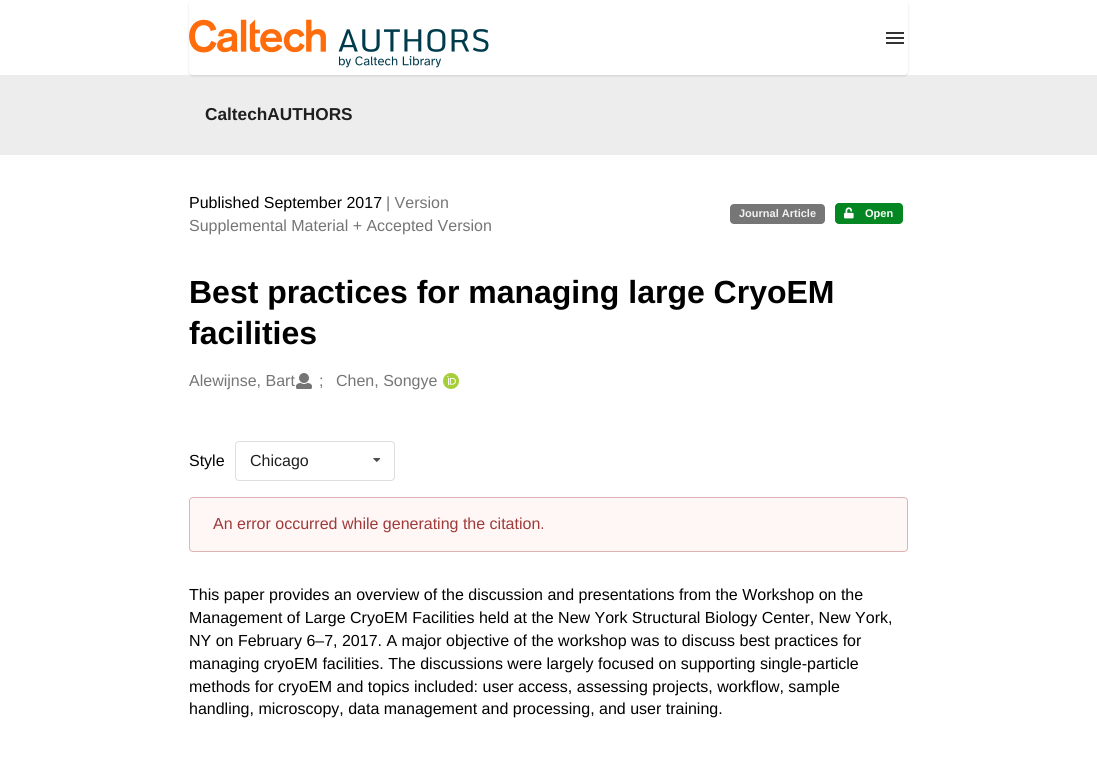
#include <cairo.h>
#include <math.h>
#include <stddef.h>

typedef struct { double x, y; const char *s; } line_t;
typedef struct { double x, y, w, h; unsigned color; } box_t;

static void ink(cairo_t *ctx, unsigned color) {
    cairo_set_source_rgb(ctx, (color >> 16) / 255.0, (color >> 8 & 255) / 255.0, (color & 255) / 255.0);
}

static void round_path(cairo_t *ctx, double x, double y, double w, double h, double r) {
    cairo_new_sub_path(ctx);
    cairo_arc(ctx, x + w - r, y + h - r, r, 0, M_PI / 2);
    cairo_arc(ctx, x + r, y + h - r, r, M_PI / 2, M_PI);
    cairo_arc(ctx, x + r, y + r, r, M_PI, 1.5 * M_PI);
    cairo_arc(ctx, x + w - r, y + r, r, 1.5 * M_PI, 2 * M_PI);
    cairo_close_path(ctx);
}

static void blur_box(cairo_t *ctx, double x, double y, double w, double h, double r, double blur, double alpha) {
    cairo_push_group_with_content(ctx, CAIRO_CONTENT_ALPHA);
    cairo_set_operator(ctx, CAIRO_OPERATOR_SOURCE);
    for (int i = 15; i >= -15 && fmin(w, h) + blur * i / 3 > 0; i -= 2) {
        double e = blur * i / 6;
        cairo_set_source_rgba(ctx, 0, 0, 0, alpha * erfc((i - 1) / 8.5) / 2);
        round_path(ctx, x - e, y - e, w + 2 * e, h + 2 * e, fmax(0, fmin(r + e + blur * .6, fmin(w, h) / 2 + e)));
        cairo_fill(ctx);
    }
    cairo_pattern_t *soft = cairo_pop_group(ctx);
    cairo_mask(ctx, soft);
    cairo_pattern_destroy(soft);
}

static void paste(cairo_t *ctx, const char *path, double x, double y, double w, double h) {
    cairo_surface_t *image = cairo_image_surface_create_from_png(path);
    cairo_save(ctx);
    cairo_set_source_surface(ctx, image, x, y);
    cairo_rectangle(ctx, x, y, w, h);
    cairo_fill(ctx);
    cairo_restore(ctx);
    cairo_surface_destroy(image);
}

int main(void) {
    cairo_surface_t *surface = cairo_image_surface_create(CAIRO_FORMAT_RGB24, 1097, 770);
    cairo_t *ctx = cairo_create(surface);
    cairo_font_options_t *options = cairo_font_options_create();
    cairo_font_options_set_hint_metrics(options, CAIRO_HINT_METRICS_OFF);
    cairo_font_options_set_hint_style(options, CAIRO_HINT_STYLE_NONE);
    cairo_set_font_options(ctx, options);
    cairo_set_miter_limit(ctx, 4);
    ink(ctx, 0xFFFFFF);
    cairo_paint(ctx);
    ink(ctx, 0xEDEDED);
    cairo_rectangle(ctx, 0, 75, 1097, 80);
    cairo_fill(ctx);
    cairo_save(ctx);
    cairo_set_fill_rule(ctx, CAIRO_FILL_RULE_EVEN_ODD);
    cairo_new_path(ctx);
    cairo_move_to(ctx, 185, 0);
    cairo_line_to(ctx, 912, 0);
    cairo_line_to(ctx, 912, 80);
    cairo_line_to(ctx, 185, 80);
    cairo_close_path(ctx);
    cairo_move_to(ctx, 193, 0);
    cairo_line_to(ctx, 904, 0);
    cairo_curve_to(ctx, 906, 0, 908, 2, 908, 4);
    cairo_line_to(ctx, 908, 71);
    cairo_curve_to(ctx, 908, 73, 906, 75, 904, 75);
    cairo_line_to(ctx, 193, 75);
    cairo_curve_to(ctx, 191, 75, 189, 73, 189, 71);
    cairo_line_to(ctx, 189, 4);
    cairo_curve_to(ctx, 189, 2, 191, 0, 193, 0);
    cairo_close_path(ctx);
    cairo_clip(ctx);
    ink(ctx, 0x222426);
    blur_box(ctx, 189, 1, 719, 75, 4, 1, 0.15);
    cairo_restore(ctx);
    paste(ctx, "media/1.png", 189, 19, 300, 49);
    {
        static const box_t items[] = {
            {886, 37, 18, 2, 0x333333},
            {886, 32, 18, 2, 0x333333},
            {886, 42, 18, 2, 0x333333},
        };
        for (size_t i = 0; i < sizeof items / sizeof *items; i++) {
            ink(ctx, items[i].color);
            cairo_rectangle(ctx, items[i].x, items[i].y, items[i].w, items[i].h);
            cairo_fill(ctx);
        }
    }
    cairo_select_font_face(ctx, "Liberation Sans", CAIRO_FONT_SLANT_NORMAL, CAIRO_FONT_WEIGHT_BOLD);
    cairo_set_font_size(ctx, 17.25);
    ink(ctx, 0x1F1F1F);
    cairo_move_to(ctx, 205, 120);
    cairo_show_text(ctx, "CaltechAUTHORS");
    cairo_select_font_face(ctx, "Liberation Sans", CAIRO_FONT_SLANT_NORMAL, CAIRO_FONT_WEIGHT_NORMAL);
    cairo_set_font_size(ctx, 16);
    ink(ctx, 0x000000);
    cairo_move_to(ctx, 189, 208);
    cairo_show_text(ctx, "Published September 2017");
    ink(ctx, 0x757575);
    cairo_move_to(ctx, 386, 208);
    cairo_show_text(ctx, "| Version");
    cairo_move_to(ctx, 189, 231);
    cairo_show_text(ctx, "Supplemental Material + Accepted Version");
    ink(ctx, 0x767676);
    round_path(ctx, 730, 204, 95, 20, 4);
    cairo_fill(ctx);
    cairo_select_font_face(ctx, "Liberation Sans", CAIRO_FONT_SLANT_NORMAL, CAIRO_FONT_WEIGHT_BOLD);
    cairo_set_font_size(ctx, 11);
    ink(ctx, 0xF1F1F1);
    cairo_move_to(ctx, 739, 217);
    cairo_show_text(ctx, "Journal Article");
    ink(ctx, 0x048622);
    round_path(ctx, 835, 203, 68, 21, 4);
    cairo_fill(ctx);
    paste(ctx, "media/2.png", 844, 207, 10, 12);
    ink(ctx, 0xFFFFFF);
    cairo_move_to(ctx, 865, 217);
    cairo_show_text(ctx, "Open");
    cairo_set_font_size(ctx, 32);
    ink(ctx, 0x000000);
    cairo_move_to(ctx, 189, 303);
    cairo_show_text(ctx, "Best practices for managing large CryoEM");
    cairo_move_to(ctx, 189, 344);
    cairo_show_text(ctx, "facilities");
    cairo_select_font_face(ctx, "Liberation Sans", CAIRO_FONT_SLANT_NORMAL, CAIRO_FONT_WEIGHT_NORMAL);
    cairo_set_font_size(ctx, 16);
    ink(ctx, 0x757575);
    cairo_move_to(ctx, 189, 386);
    cairo_show_text(ctx, "Alewijnse, Bart");
    paste(ctx, "media/3.png", 296, 373, 16, 16);
    cairo_move_to(ctx, 319, 386);
    cairo_show_text(ctx, ";");
    cairo_move_to(ctx, 336, 386);
    cairo_show_text(ctx, "Chen, Songye");
    paste(ctx, "media/4.png", 443, 373, 16, 16);
    ink(ctx, 0x000000);
    cairo_move_to(ctx, 189, 466);
    cairo_show_text(ctx, "Style");
    round_path(ctx, 235.5, 441.5, 159, 39, 3.5);
    ink(ctx, 0xDEDEDE);
    cairo_set_line_width(ctx, 1);
    cairo_stroke(ctx);
    ink(ctx, 0x1F1F1F);
    cairo_move_to(ctx, 250, 466);
    cairo_show_text(ctx, "Chicago");
    paste(ctx, "media/5.png", 373, 458, 8, 4);
    ink(ctx, 0xFFF6F6);
    round_path(ctx, 189.5, 497.5, 718, 54, 3.5);
    cairo_fill_preserve(ctx);
    ink(ctx, 0xE0B4B4);
    cairo_stroke(ctx);
    ink(ctx, 0x9F3A38);
    cairo_move_to(ctx, 213, 529);
    cairo_show_text(ctx, "An error occurred while generating the citation.");
    ink(ctx, 0x000000);
    {
        static const line_t items[] = {
            {189, 600, "This paper provides an overview of the discussion and presentations from the Workshop on the"},
            {189, 623, "Management of Large CryoEM Facilities held at the New York Structural Biology Center, New York,"},
            {189, 646, "NY on February 6–7, 2017. A major objective of the workshop was to discuss best practices for"},
            {189, 669, "managing cryoEM facilities. The discussions were largely focused on supporting single-particle"},
            {189, 692, "methods for cryoEM and topics included: user access, assessing projects, workflow, sample"},
            {189, 714, "handling, microscopy, data management and processing, and user training."},
        };
        for (size_t i = 0; i < sizeof items / sizeof *items; i++) {
            cairo_move_to(ctx, items[i].x, items[i].y);
            cairo_show_text(ctx, items[i].s);
        }
    }
    cairo_surface_write_to_png(surface, "image.png");
    cairo_font_options_destroy(options);
    cairo_destroy(ctx);
    cairo_surface_destroy(surface);
    return 0;
}
